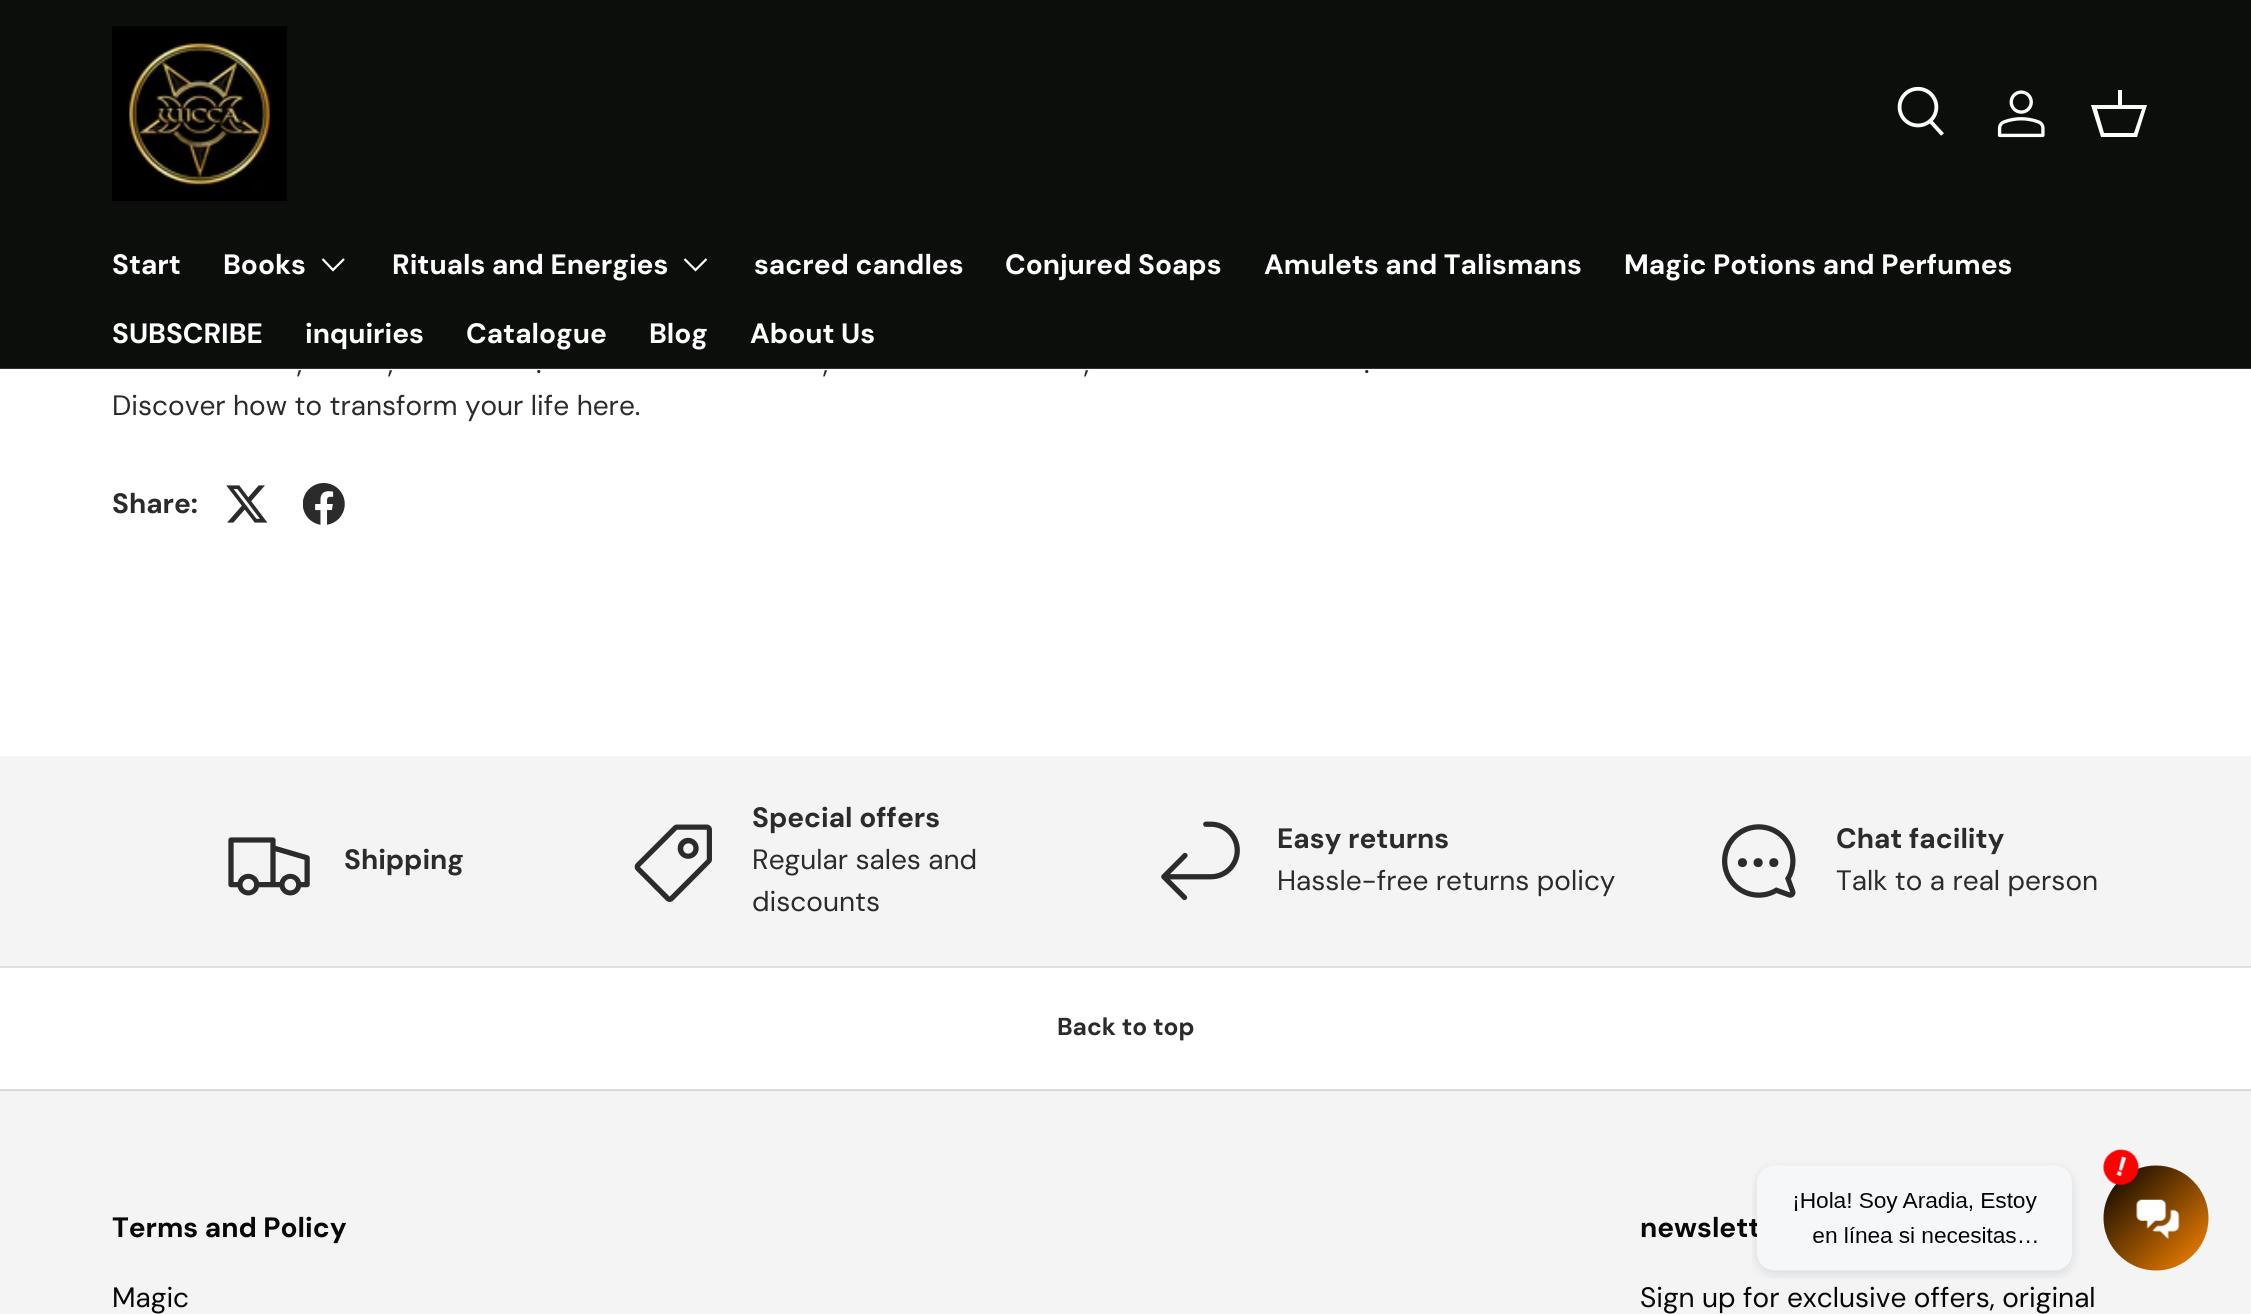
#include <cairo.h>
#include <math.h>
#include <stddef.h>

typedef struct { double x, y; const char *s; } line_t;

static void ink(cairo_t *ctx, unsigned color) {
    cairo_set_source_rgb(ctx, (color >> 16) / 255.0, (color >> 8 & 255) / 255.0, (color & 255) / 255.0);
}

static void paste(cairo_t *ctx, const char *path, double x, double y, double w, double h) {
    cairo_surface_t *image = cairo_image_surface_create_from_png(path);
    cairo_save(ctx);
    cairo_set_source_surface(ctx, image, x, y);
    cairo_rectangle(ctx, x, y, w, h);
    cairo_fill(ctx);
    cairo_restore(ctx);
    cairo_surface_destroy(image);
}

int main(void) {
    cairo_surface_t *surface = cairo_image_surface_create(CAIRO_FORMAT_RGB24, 2251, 1314);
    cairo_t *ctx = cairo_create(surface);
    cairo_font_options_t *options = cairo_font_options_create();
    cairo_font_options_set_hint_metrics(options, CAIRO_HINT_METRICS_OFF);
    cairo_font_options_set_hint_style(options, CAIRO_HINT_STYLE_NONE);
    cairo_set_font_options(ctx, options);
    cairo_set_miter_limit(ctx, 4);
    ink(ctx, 0xFFFFFF);
    cairo_paint(ctx);
    ink(ctx, 0xDFDFDF);
    cairo_rectangle(ctx, 0, 1089, 2251, 1);
    cairo_fill(ctx);
    ink(ctx, 0x0C0E0C);
    cairo_rectangle(ctx, 0, 0, 2251, 369);
    cairo_fill(ctx);
    cairo_set_source_rgba(ctx, 1, 1, 1, 0.15);
    cairo_rectangle(ctx, 0, 368, 2251, 1);
    cairo_fill(ctx);
    paste(ctx, "media/1.png", 112, 26, 175, 175);
    paste(ctx, "media/2.png", 1897, 86, 47, 50);
    paste(ctx, "media/3.png", 1997, 90, 48, 48);
    ink(ctx, 0xFFFFFF);
    cairo_new_path(ctx);
    cairo_move_to(ctx, 2118, 105);
    cairo_line_to(ctx, 2118, 90);
    cairo_line_to(ctx, 2122, 90);
    cairo_line_to(ctx, 2122, 105);
    cairo_line_to(ctx, 2147, 105);
    cairo_line_to(ctx, 2137, 137);
    cairo_line_to(ctx, 2101, 137);
    cairo_line_to(ctx, 2091, 105);
    cairo_close_path(ctx);
    cairo_move_to(ctx, 2097, 109);
    cairo_line_to(ctx, 2104, 133);
    cairo_line_to(ctx, 2134, 133);
    cairo_line_to(ctx, 2142, 109);
    cairo_close_path(ctx);
    cairo_fill(ctx);
    cairo_select_font_face(ctx, "DM Sans", CAIRO_FONT_SLANT_NORMAL, CAIRO_FONT_WEIGHT_BOLD);
    cairo_set_font_size(ctx, 28);
    cairo_move_to(ctx, 112, 274);
    cairo_show_text(ctx, "Start");
    cairo_move_to(ctx, 223, 274);
    cairo_show_text(ctx, "Books");
    cairo_new_path(ctx);
    cairo_move_to(ctx, 344, 259);
    cairo_line_to(ctx, 333, 270);
    cairo_line_to(ctx, 322.5, 259);
    cairo_set_line_width(ctx, 2.2);
    cairo_stroke(ctx);
    cairo_move_to(ctx, 392, 274);
    cairo_show_text(ctx, "Rituals and Energies");
    cairo_new_path(ctx);
    cairo_move_to(ctx, 706.5, 259);
    cairo_line_to(ctx, 695.5, 270);
    cairo_line_to(ctx, 684.5, 259);
    cairo_stroke(ctx);
    {
        static const line_t items[] = {
            {754, 274, "sacred candles"},
            {1005, 274, "Conjured Soaps"},
            {1264, 274, "Amulets and Talismans"},
            {1624, 274, "Magic Potions and Perfumes"},
            {112, 343, "SUBSCRIBE"},
            {305, 343, "inquiries"},
            {466, 343, "Catalogue"},
            {649, 343, "Blog"},
            {750, 343, "About Us"},
        };
        for (size_t i = 0; i < sizeof items / sizeof *items; i++) {
            cairo_move_to(ctx, items[i].x, items[i].y);
            cairo_show_text(ctx, items[i].s);
        }
    }
    cairo_select_font_face(ctx, "DM Sans", CAIRO_FONT_SLANT_NORMAL, CAIRO_FONT_WEIGHT_NORMAL);
    ink(ctx, 0x2A2B2A);
    {
        static const line_t items[] = {
            {297, 373, ","},
            {388, 373, ","},
            {536, 373, "."},
            {823, 373, ","},
            {1084, 373, ","},
            {1364, 373, "."},
            {112, 415, "Discover how to transform your life here."},
        };
        for (size_t i = 0; i < sizeof items / sizeof *items; i++) {
            cairo_move_to(ctx, items[i].x, items[i].y);
            cairo_show_text(ctx, items[i].s);
        }
    }
    cairo_select_font_face(ctx, "DM Sans", CAIRO_FONT_SLANT_NORMAL, CAIRO_FONT_WEIGHT_BOLD);
    cairo_move_to(ctx, 112, 513);
    cairo_show_text(ctx, "Share:");
    paste(ctx, "media/4.png", 226, 485, 42, 38);
    paste(ctx, "media/5.png", 303, 483, 42, 42);
    ink(ctx, 0xF4F4F4);
    cairo_rectangle(ctx, 0, 756, 2251, 210);
    cairo_fill(ctx);
    paste(ctx, "media/6.png", 228, 837, 82, 59);
    ink(ctx, 0x2A2B2A);
    cairo_move_to(ctx, 344, 869);
    cairo_show_text(ctx, "Shipping");
    paste(ctx, "media/7.png", 634, 824, 78, 78);
    cairo_move_to(ctx, 752, 827);
    cairo_show_text(ctx, "Special offers");
    cairo_select_font_face(ctx, "DM Sans", CAIRO_FONT_SLANT_NORMAL, CAIRO_FONT_WEIGHT_NORMAL);
    cairo_move_to(ctx, 752, 869);
    cairo_show_text(ctx, "Regular sales and");
    cairo_move_to(ctx, 752, 911);
    cairo_show_text(ctx, "discounts");
    paste(ctx, "media/8.png", 1161, 821, 79, 80);
    cairo_select_font_face(ctx, "DM Sans", CAIRO_FONT_SLANT_NORMAL, CAIRO_FONT_WEIGHT_BOLD);
    cairo_move_to(ctx, 1277, 848);
    cairo_show_text(ctx, "Easy returns");
    cairo_select_font_face(ctx, "DM Sans", CAIRO_FONT_SLANT_NORMAL, CAIRO_FONT_WEIGHT_NORMAL);
    cairo_move_to(ctx, 1277, 890);
    cairo_show_text(ctx, "Hassle-free returns policy");
    paste(ctx, "media/9.png", 1722, 824, 74, 74);
    cairo_select_font_face(ctx, "DM Sans", CAIRO_FONT_SLANT_NORMAL, CAIRO_FONT_WEIGHT_BOLD);
    cairo_move_to(ctx, 1836, 848);
    cairo_show_text(ctx, "Chat facility");
    cairo_select_font_face(ctx, "DM Sans", CAIRO_FONT_SLANT_NORMAL, CAIRO_FONT_WEIGHT_NORMAL);
    cairo_move_to(ctx, 1836, 890);
    cairo_show_text(ctx, "Talk to a real person");
    ink(ctx, 0xDFDFDF);
    cairo_rectangle(ctx, 0, 966, 2251, 2);
    cairo_fill(ctx);
    cairo_select_font_face(ctx, "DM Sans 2", CAIRO_FONT_SLANT_NORMAL, CAIRO_FONT_WEIGHT_BOLD);
    cairo_set_font_size(ctx, 24.5);
    ink(ctx, 0x2A2B2A);
    cairo_move_to(ctx, 1057, 1035);
    cairo_show_text(ctx, "Back to top");
    ink(ctx, 0xF4F4F4);
    cairo_rectangle(ctx, 0, 1091, 2251, 223);
    cairo_fill(ctx);
    ink(ctx, 0xD6D6D6);
    cairo_rectangle(ctx, 0, 1090, 2251, 1);
    cairo_fill(ctx);
    cairo_select_font_face(ctx, "DM Sans", CAIRO_FONT_SLANT_NORMAL, CAIRO_FONT_WEIGHT_BOLD);
    cairo_set_font_size(ctx, 28);
    ink(ctx, 0x070707);
    cairo_move_to(ctx, 112, 1237);
    cairo_show_text(ctx, "Terms and Policy");
    cairo_select_font_face(ctx, "DM Sans", CAIRO_FONT_SLANT_NORMAL, CAIRO_FONT_WEIGHT_NORMAL);
    cairo_move_to(ctx, 112, 1307);
    cairo_show_text(ctx, "Magic");
    cairo_select_font_face(ctx, "DM Sans", CAIRO_FONT_SLANT_NORMAL, CAIRO_FONT_WEIGHT_BOLD);
    cairo_move_to(ctx, 1640, 1237);
    cairo_show_text(ctx, "newslett");
    cairo_select_font_face(ctx, "DM Sans", CAIRO_FONT_SLANT_NORMAL, CAIRO_FONT_WEIGHT_NORMAL);
    cairo_move_to(ctx, 1640, 1307);
    cairo_show_text(ctx, "Sign up for exclusive offers, original");
    paste(ctx, "media/10.png", 1752, 1149, 457, 130);
    cairo_surface_write_to_png(surface, "image.png");
    cairo_font_options_destroy(options);
    cairo_destroy(ctx);
    cairo_surface_destroy(surface);
    return 0;
}
